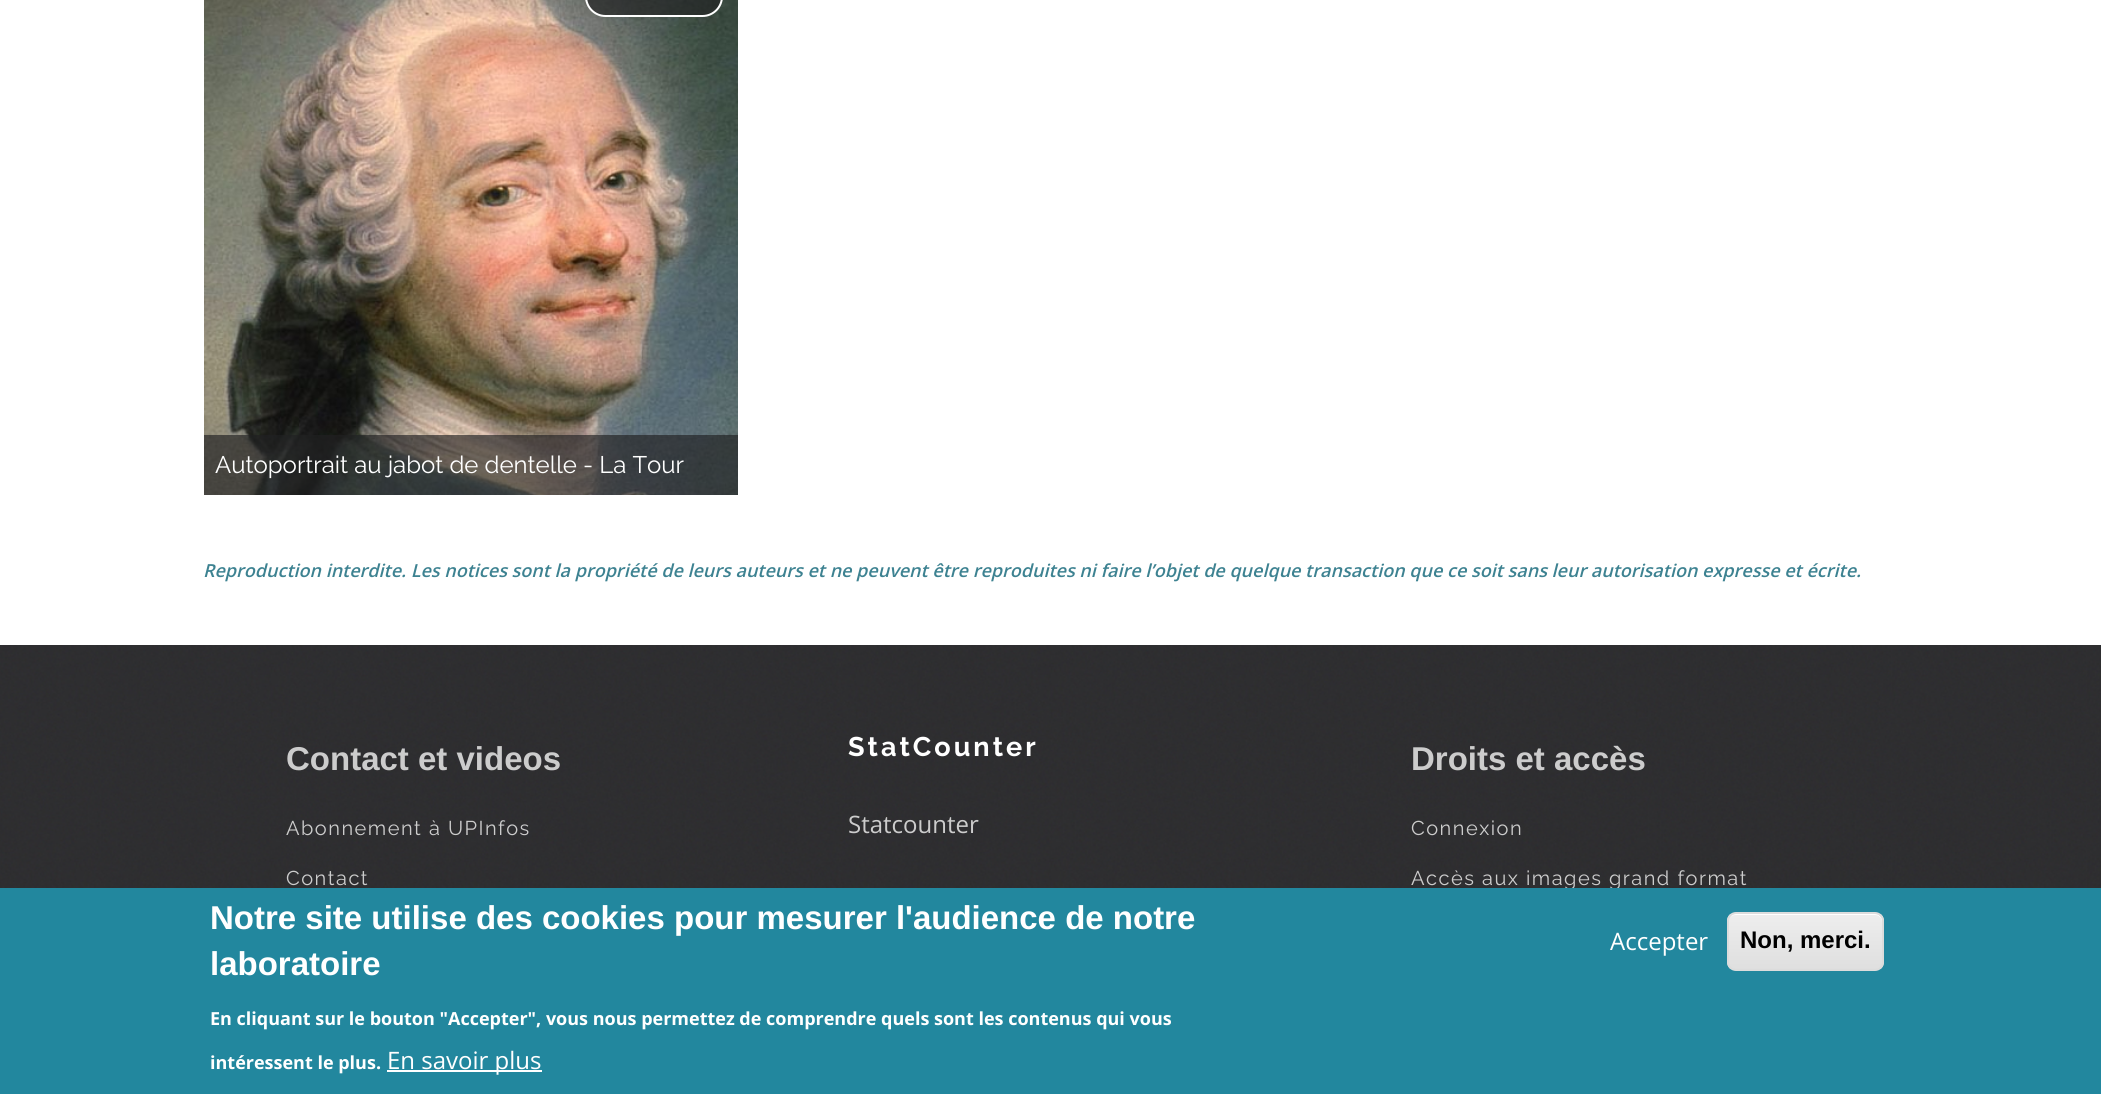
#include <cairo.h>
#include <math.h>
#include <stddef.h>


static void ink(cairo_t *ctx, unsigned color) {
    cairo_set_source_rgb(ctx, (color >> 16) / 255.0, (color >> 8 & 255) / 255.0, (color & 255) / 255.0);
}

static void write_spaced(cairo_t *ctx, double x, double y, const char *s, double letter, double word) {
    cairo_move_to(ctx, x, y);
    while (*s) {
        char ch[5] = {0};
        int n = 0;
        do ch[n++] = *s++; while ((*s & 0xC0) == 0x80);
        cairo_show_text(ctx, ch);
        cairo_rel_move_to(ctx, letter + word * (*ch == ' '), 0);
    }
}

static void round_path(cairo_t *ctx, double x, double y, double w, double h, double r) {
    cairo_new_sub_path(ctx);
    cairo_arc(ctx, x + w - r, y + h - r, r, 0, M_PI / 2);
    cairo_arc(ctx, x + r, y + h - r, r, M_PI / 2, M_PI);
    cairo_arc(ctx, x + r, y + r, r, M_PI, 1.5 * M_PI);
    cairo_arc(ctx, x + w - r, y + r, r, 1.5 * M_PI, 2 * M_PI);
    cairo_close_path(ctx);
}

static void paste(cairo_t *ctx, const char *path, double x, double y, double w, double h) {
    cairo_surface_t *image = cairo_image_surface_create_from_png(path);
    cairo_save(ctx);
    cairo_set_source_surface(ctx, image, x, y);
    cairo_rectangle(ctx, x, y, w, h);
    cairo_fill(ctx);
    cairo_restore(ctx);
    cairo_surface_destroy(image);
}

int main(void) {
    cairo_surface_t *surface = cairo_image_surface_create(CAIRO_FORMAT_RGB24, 2101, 1094);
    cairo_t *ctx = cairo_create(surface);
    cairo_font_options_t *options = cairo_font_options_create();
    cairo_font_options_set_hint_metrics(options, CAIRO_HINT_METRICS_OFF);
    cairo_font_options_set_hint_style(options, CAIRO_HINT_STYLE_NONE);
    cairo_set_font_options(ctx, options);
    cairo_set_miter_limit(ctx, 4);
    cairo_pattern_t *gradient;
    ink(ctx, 0xFFFFFF);
    cairo_paint(ctx);
    paste(ctx, "media/1.png", 204, 0, 534, 495);
    cairo_set_source_rgba(ctx, 0.125, 0.129, 0.133, 0.66);
    round_path(ctx, 586, -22, 136, 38, 19.5);
    cairo_fill_preserve(ctx);
    ink(ctx, 0xFFFFFF);
    cairo_stroke(ctx);
    cairo_set_source_rgba(ctx, 0.125, 0.129, 0.133, 0.66);
    cairo_rectangle(ctx, 204, 435, 534, 60);
    cairo_fill(ctx);
    cairo_select_font_face(ctx, "Raleway", CAIRO_FONT_SLANT_NORMAL, CAIRO_FONT_WEIGHT_NORMAL);
    cairo_set_font_size(ctx, 24);
    ink(ctx, 0xFFFFFF);
    cairo_move_to(ctx, 215, 473);
    cairo_show_text(ctx, "Autoportrait au jabot de dentelle - La Tour");
    cairo_select_font_face(ctx, "Open Sans SemiBold", CAIRO_FONT_SLANT_ITALIC, CAIRO_FONT_WEIGHT_NORMAL);
    cairo_set_font_size(ctx, 18);
    ink(ctx, 0x3D8291);
    cairo_move_to(ctx, 203, 577);
    cairo_show_text(ctx, "Reproduction interdite. Les notices sont la propriété de leurs auteurs et ne peuvent être reproduites ni faire l’objet de quelque transaction que ce soit sans leur autorisation expresse et écrite.");
    paste(ctx, "media/2.png", 0, 645, 2101, 243);
    cairo_select_font_face(ctx, "Liberation Sans", CAIRO_FONT_SLANT_NORMAL, CAIRO_FONT_WEIGHT_BOLD);
    cairo_set_font_size(ctx, 33);
    ink(ctx, 0xCCCCCC);
    cairo_move_to(ctx, 286, 770);
    cairo_show_text(ctx, "Contact et videos");
    cairo_select_font_face(ctx, "Raleway", CAIRO_FONT_SLANT_NORMAL, CAIRO_FONT_WEIGHT_NORMAL);
    cairo_set_font_size(ctx, 20);
    write_spaced(ctx, 286, 835, "Abonnement à UPInfos", 1.5, 0);
    write_spaced(ctx, 286, 885, "Contact", 1.5, 0);
    cairo_select_font_face(ctx, "Raleway", CAIRO_FONT_SLANT_NORMAL, CAIRO_FONT_WEIGHT_BOLD);
    cairo_set_font_size(ctx, 27);
    ink(ctx, 0xFFFFFF);
    write_spaced(ctx, 848, 756, "StatCounter", 3, 0);
    cairo_select_font_face(ctx, "Open Sans", CAIRO_FONT_SLANT_NORMAL, CAIRO_FONT_WEIGHT_NORMAL);
    cairo_set_font_size(ctx, 24);
    ink(ctx, 0xCCCCCC);
    cairo_move_to(ctx, 848, 833);
    cairo_show_text(ctx, "Statcounter");
    cairo_select_font_face(ctx, "Liberation Sans", CAIRO_FONT_SLANT_NORMAL, CAIRO_FONT_WEIGHT_BOLD);
    cairo_set_font_size(ctx, 33);
    cairo_move_to(ctx, 1411, 770);
    cairo_show_text(ctx, "Droits et accès");
    cairo_select_font_face(ctx, "Raleway", CAIRO_FONT_SLANT_NORMAL, CAIRO_FONT_WEIGHT_NORMAL);
    cairo_set_font_size(ctx, 20);
    write_spaced(ctx, 1411, 835, "Connexion", 1.5, 0);
    write_spaced(ctx, 1411, 885, "Accès aux images grand format", 1.5, 0);
    ink(ctx, 0x22879E);
    cairo_rectangle(ctx, 0, 888, 2101, 206);
    cairo_fill(ctx);
    cairo_select_font_face(ctx, "Liberation Sans", CAIRO_FONT_SLANT_NORMAL, CAIRO_FONT_WEIGHT_BOLD);
    cairo_set_font_size(ctx, 33);
    ink(ctx, 0xFFFFFF);
    cairo_move_to(ctx, 210, 929);
    cairo_show_text(ctx, "Notre site utilise des cookies pour mesurer l'audience de notre");
    cairo_move_to(ctx, 210, 975);
    cairo_show_text(ctx, "laboratoire");
    cairo_select_font_face(ctx, "Open Sans", CAIRO_FONT_SLANT_NORMAL, CAIRO_FONT_WEIGHT_BOLD);
    cairo_set_font_size(ctx, 18);
    cairo_move_to(ctx, 210, 1025);
    cairo_show_text(ctx, "En cliquant sur le bouton \"Accepter\", vous nous permettez de comprendre quels sont les contenus qui vous");
    cairo_move_to(ctx, 210, 1069);
    cairo_show_text(ctx, "intéressent le plus.");
    cairo_rectangle(ctx, 387, 1070, 155, 2);
    cairo_fill(ctx);
    cairo_select_font_face(ctx, "Open Sans", CAIRO_FONT_SLANT_NORMAL, CAIRO_FONT_WEIGHT_NORMAL);
    cairo_set_font_size(ctx, 24);
    cairo_move_to(ctx, 387, 1069);
    cairo_show_text(ctx, "En savoir plus");
    cairo_move_to(ctx, 1610, 950);
    cairo_show_text(ctx, "Accepter");
    cairo_save(ctx);
    round_path(ctx, 1727, 912, 157, 59, 9);
    cairo_clip(ctx);
    gradient = cairo_pattern_create_linear(1805, 914, 1805, 969);
    cairo_pattern_add_color_stop_rgba(gradient, 0.05, 0.929, 0.929, 0.929, 1);
    cairo_pattern_add_color_stop_rgba(gradient, 1, 0.875, 0.875, 0.875, 1);
    cairo_set_source(ctx, gradient);
    cairo_pattern_destroy(gradient);
    cairo_rectangle(ctx, 1727, 914, 157, 55);
    cairo_fill(ctx);
    cairo_restore(ctx);
    cairo_new_path(ctx);
    cairo_move_to(ctx, 1736, 915);
    cairo_line_to(ctx, 1875, 915);
    cairo_curve_to(ctx, 1879, 915, 1882, 918, 1882, 922);
    cairo_line_to(ctx, 1882, 963);
    cairo_line_to(ctx, 1882, 966);
    cairo_curve_to(ctx, 1882, 964, 1883, 963, 1883, 961);
    cairo_line_to(ctx, 1883, 922);
    cairo_curve_to(ctx, 1883, 918, 1879, 914, 1875, 914);
    cairo_line_to(ctx, 1736, 914);
    cairo_curve_to(ctx, 1732, 914, 1728, 918, 1728, 922);
    cairo_curve_to(ctx, 1728, 918, 1731, 915, 1736, 915);
    cairo_close_path(ctx);
    cairo_fill(ctx);
    round_path(ctx, 1728, 913, 155, 57, 8);
    ink(ctx, 0xDCDCDC);
    cairo_stroke(ctx);
    cairo_select_font_face(ctx, "Liberation Sans", CAIRO_FONT_SLANT_NORMAL, CAIRO_FONT_WEIGHT_BOLD);
    ink(ctx, 0x000000);
    cairo_move_to(ctx, 1740, 948);
    cairo_show_text(ctx, "Non, merci.");
    cairo_surface_write_to_png(surface, "image.png");
    cairo_font_options_destroy(options);
    cairo_destroy(ctx);
    cairo_surface_destroy(surface);
    return 0;
}
